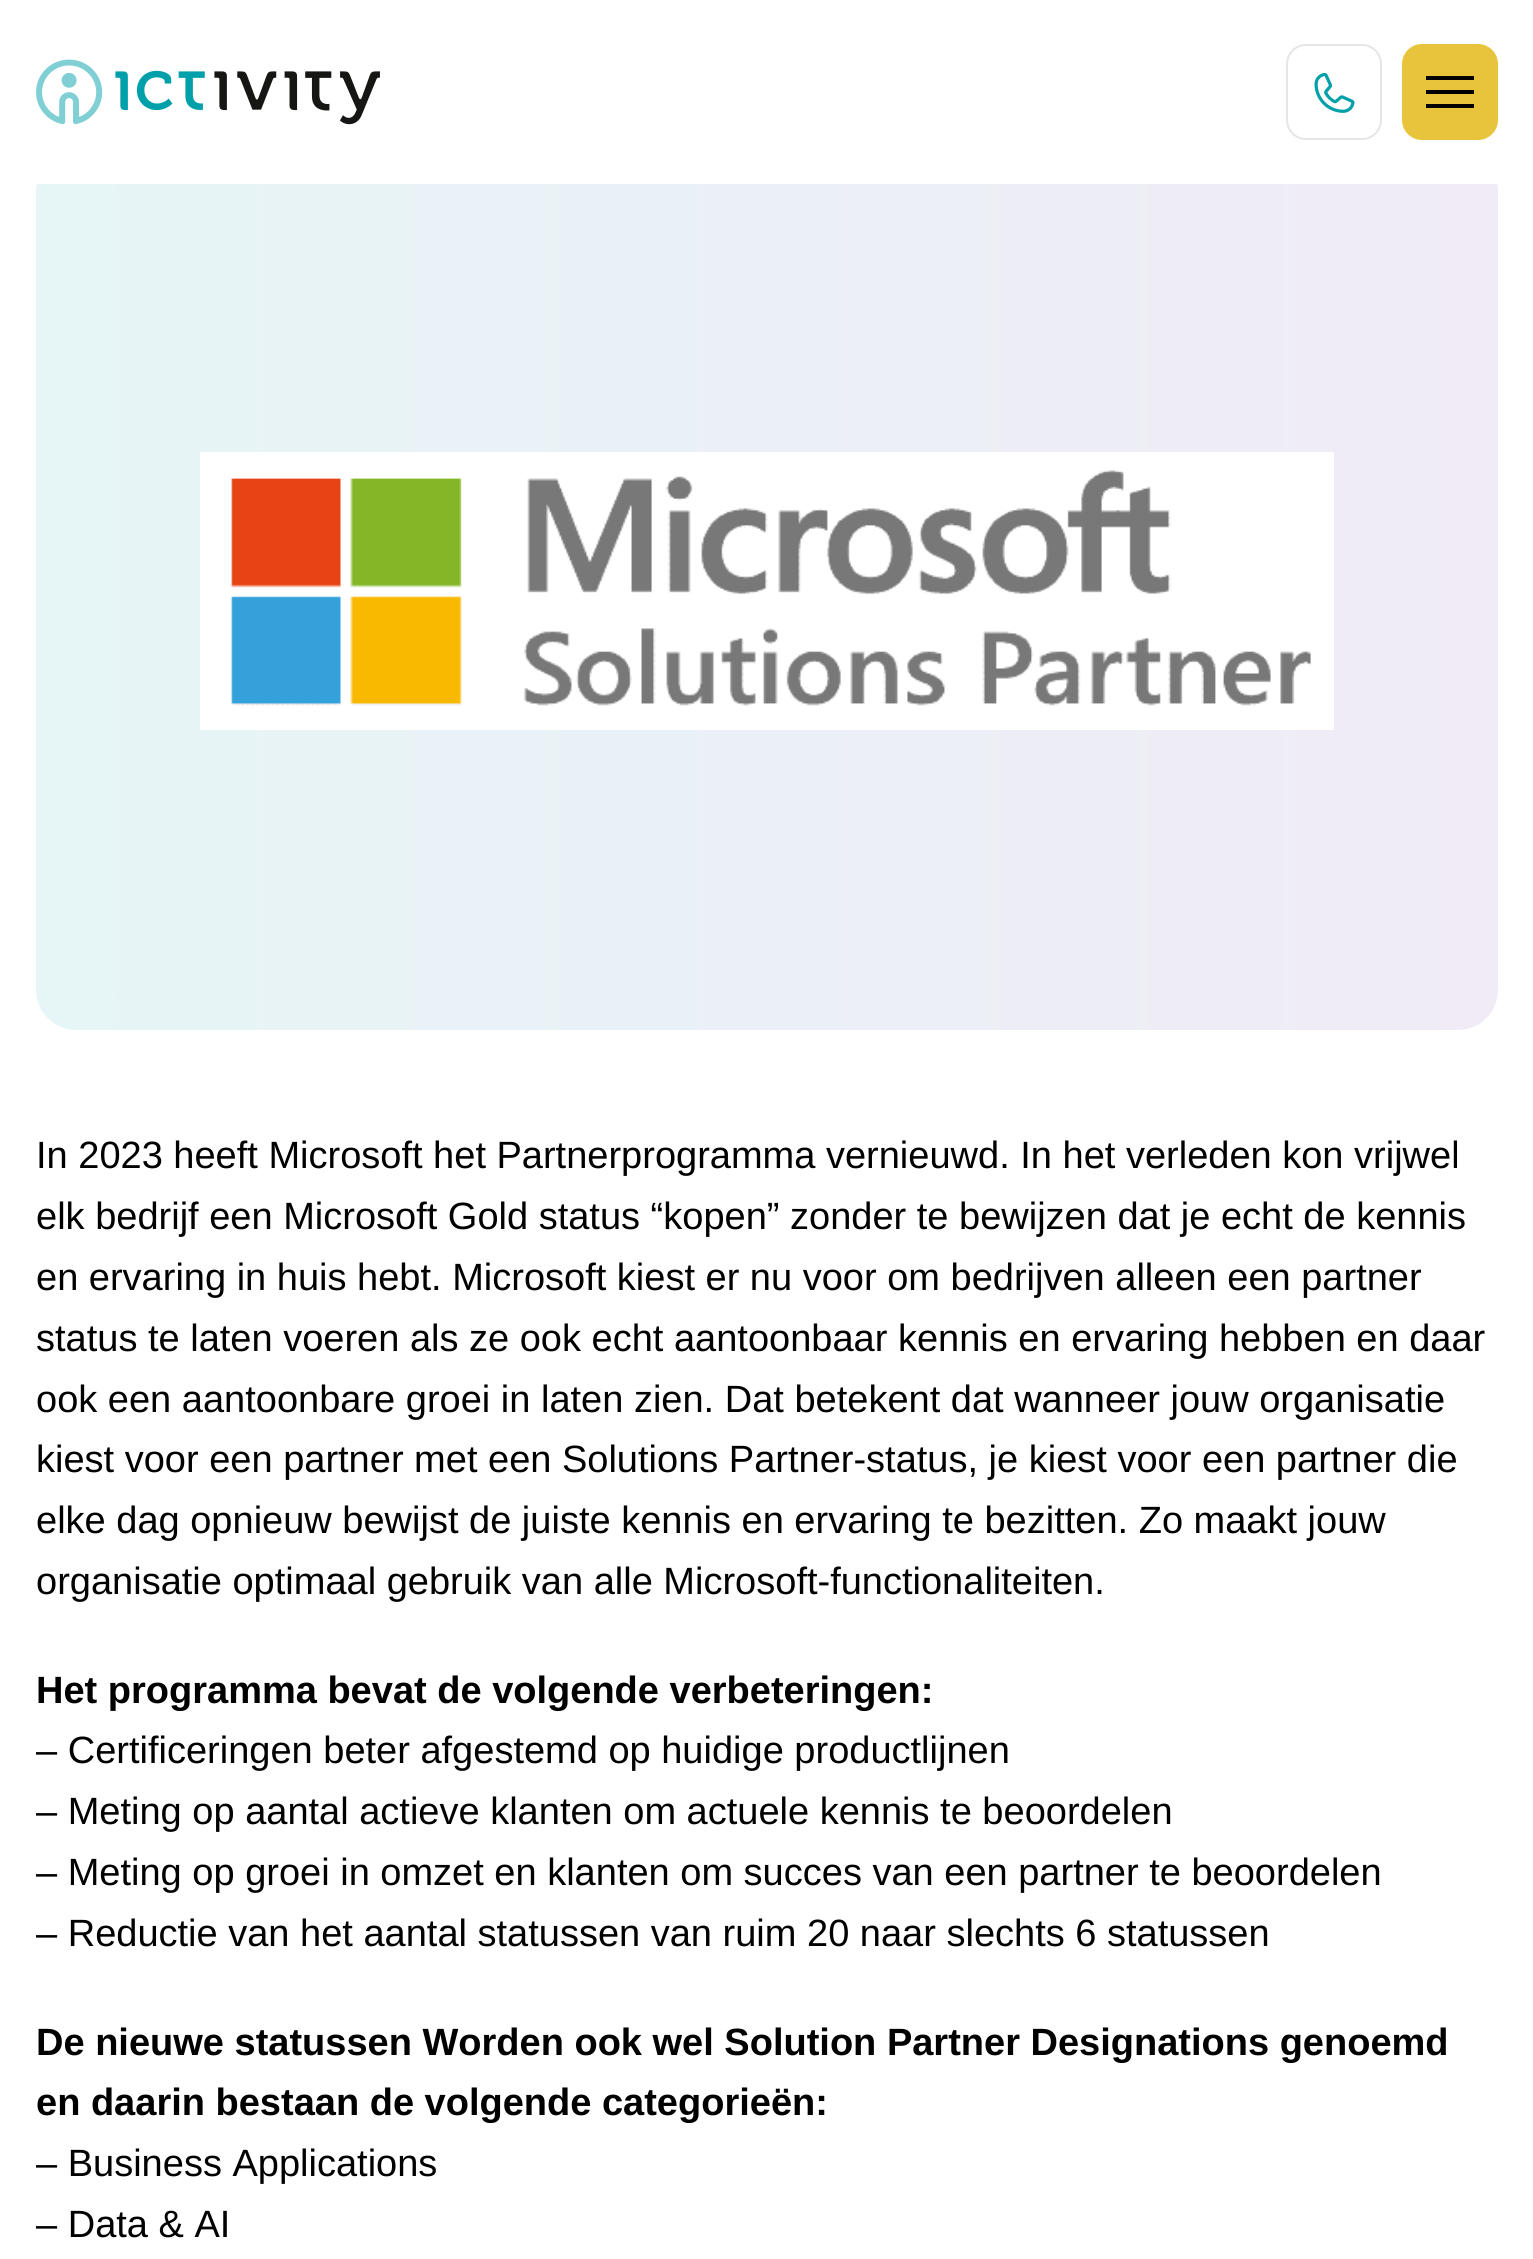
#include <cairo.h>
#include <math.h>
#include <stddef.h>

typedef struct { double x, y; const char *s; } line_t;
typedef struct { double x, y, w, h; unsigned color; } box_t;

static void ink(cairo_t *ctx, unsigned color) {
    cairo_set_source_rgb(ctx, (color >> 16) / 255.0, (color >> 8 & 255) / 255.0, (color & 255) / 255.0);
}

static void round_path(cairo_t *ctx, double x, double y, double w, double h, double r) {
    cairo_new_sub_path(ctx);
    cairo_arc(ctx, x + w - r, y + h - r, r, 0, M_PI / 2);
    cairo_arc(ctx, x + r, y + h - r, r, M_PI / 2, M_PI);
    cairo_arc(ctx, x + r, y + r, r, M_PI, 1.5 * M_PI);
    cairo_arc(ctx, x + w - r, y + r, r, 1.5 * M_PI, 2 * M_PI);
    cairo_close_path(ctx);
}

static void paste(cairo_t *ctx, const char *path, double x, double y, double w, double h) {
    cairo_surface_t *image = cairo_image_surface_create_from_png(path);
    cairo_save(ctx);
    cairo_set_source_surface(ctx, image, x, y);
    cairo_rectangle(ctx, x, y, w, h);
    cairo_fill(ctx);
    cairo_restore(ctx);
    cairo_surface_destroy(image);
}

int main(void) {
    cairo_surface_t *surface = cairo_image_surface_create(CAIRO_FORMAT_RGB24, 1533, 2259);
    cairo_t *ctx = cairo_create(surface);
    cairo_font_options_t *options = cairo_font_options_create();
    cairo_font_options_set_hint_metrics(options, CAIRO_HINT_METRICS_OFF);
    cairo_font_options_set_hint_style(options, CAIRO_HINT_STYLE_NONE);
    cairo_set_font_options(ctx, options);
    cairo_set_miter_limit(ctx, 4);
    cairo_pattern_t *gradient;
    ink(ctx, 0xFFFFFF);
    cairo_paint(ctx);
    gradient = cairo_pattern_create_linear(1498, 591, 36, 591);
    cairo_pattern_add_color_stop_rgba(gradient, 0, 0.941, 0.922, 0.961, 1);
    cairo_pattern_add_color_stop_rgba(gradient, 1, 0.902, 0.961, 0.965, 1);
    cairo_set_source(ctx, gradient);
    cairo_pattern_destroy(gradient);
    round_path(ctx, 36, 152, 1462, 878, 40);
    cairo_fill(ctx);
    ink(ctx, 0xFFFFFF);
    cairo_rectangle(ctx, 37, 152, 1460, 32);
    cairo_fill(ctx);
    paste(ctx, "media/1.png", 36, 59, 344, 66);
    round_path(ctx, 1287, 45, 94, 94, 19);
    ink(ctx, 0xE6E6E6);
    cairo_stroke(ctx);
    paste(ctx, "media/2.png", 1314, 72, 41, 41);
    ink(ctx, 0xE8C43D);
    round_path(ctx, 1402, 44, 96, 96, 20);
    cairo_fill(ctx);
    {
        static const box_t items[] = {
            {1426, 90, 48, 4, 0x000000},
            {1426, 76, 48, 4, 0x000000},
            {1426, 104, 48, 4, 0x000000},
        };
        for (size_t i = 0; i < sizeof items / sizeof *items; i++) {
            ink(ctx, items[i].color);
            cairo_rectangle(ctx, items[i].x, items[i].y, items[i].w, items[i].h);
            cairo_fill(ctx);
        }
    }
    paste(ctx, "media/3.png", 200, 452, 1134, 278);
    cairo_select_font_face(ctx, "Liberation Sans", CAIRO_FONT_SLANT_NORMAL, CAIRO_FONT_WEIGHT_NORMAL);
    cairo_set_font_size(ctx, 38);
    {
        static const line_t items[] = {
            {36, 1168, "In 2023 heeft Microsoft het Partnerprogramma vernieuwd. In het verleden kon vrijwel"},
            {36, 1229, "elk bedrijf een Microsoft Gold status “kopen” zonder te bewijzen dat je echt de kennis"},
            {36, 1290, "en ervaring in huis hebt. Microsoft kiest er nu voor om bedrijven alleen een partner"},
            {36, 1351, "status te laten voeren als ze ook echt aantoonbaar kennis en ervaring hebben en daar"},
            {36, 1412, "ook een aantoonbare groei in laten zien. Dat betekent dat wanneer jouw organisatie"},
            {36, 1472, "kiest voor een partner met een Solutions Partner-status, je kiest voor een partner die"},
            {36, 1533, "elke dag opnieuw bewijst de juiste kennis en ervaring te bezitten. Zo maakt jouw"},
            {36, 1594, "organisatie optimaal gebruik van alle Microsoft-functionaliteiten."},
        };
        for (size_t i = 0; i < sizeof items / sizeof *items; i++) {
            cairo_move_to(ctx, items[i].x, items[i].y);
            cairo_show_text(ctx, items[i].s);
        }
    }
    cairo_select_font_face(ctx, "Liberation Sans", CAIRO_FONT_SLANT_NORMAL, CAIRO_FONT_WEIGHT_BOLD);
    cairo_move_to(ctx, 36, 1703);
    cairo_show_text(ctx, "Het programma bevat de volgende verbeteringen:");
    cairo_select_font_face(ctx, "Liberation Sans", CAIRO_FONT_SLANT_NORMAL, CAIRO_FONT_WEIGHT_NORMAL);
    {
        static const line_t items[] = {
            {36, 1763, "– Certificeringen beter afgestemd op huidige productlijnen"},
            {36, 1824, "– Meting op aantal actieve klanten om actuele kennis te beoordelen"},
            {36, 1885, "– Meting op groei in omzet en klanten om succes van een partner te beoordelen"},
            {36, 1946, "– Reductie van het aantal statussen van ruim 20 naar slechts 6 statussen"},
        };
        for (size_t i = 0; i < sizeof items / sizeof *items; i++) {
            cairo_move_to(ctx, items[i].x, items[i].y);
            cairo_show_text(ctx, items[i].s);
        }
    }
    cairo_select_font_face(ctx, "Liberation Sans", CAIRO_FONT_SLANT_NORMAL, CAIRO_FONT_WEIGHT_BOLD);
    cairo_move_to(ctx, 36, 2055);
    cairo_show_text(ctx, "De nieuwe statussen Worden ook wel Solution Partner Designations genoemd");
    cairo_move_to(ctx, 36, 2115);
    cairo_show_text(ctx, "en daarin bestaan de volgende categorieën:");
    cairo_select_font_face(ctx, "Liberation Sans", CAIRO_FONT_SLANT_NORMAL, CAIRO_FONT_WEIGHT_NORMAL);
    cairo_move_to(ctx, 36, 2176);
    cairo_show_text(ctx, "– Business Applications");
    cairo_move_to(ctx, 36, 2237);
    cairo_show_text(ctx, "– Data & AI");
    cairo_surface_write_to_png(surface, "image.png");
    cairo_font_options_destroy(options);
    cairo_destroy(ctx);
    cairo_surface_destroy(surface);
    return 0;
}
